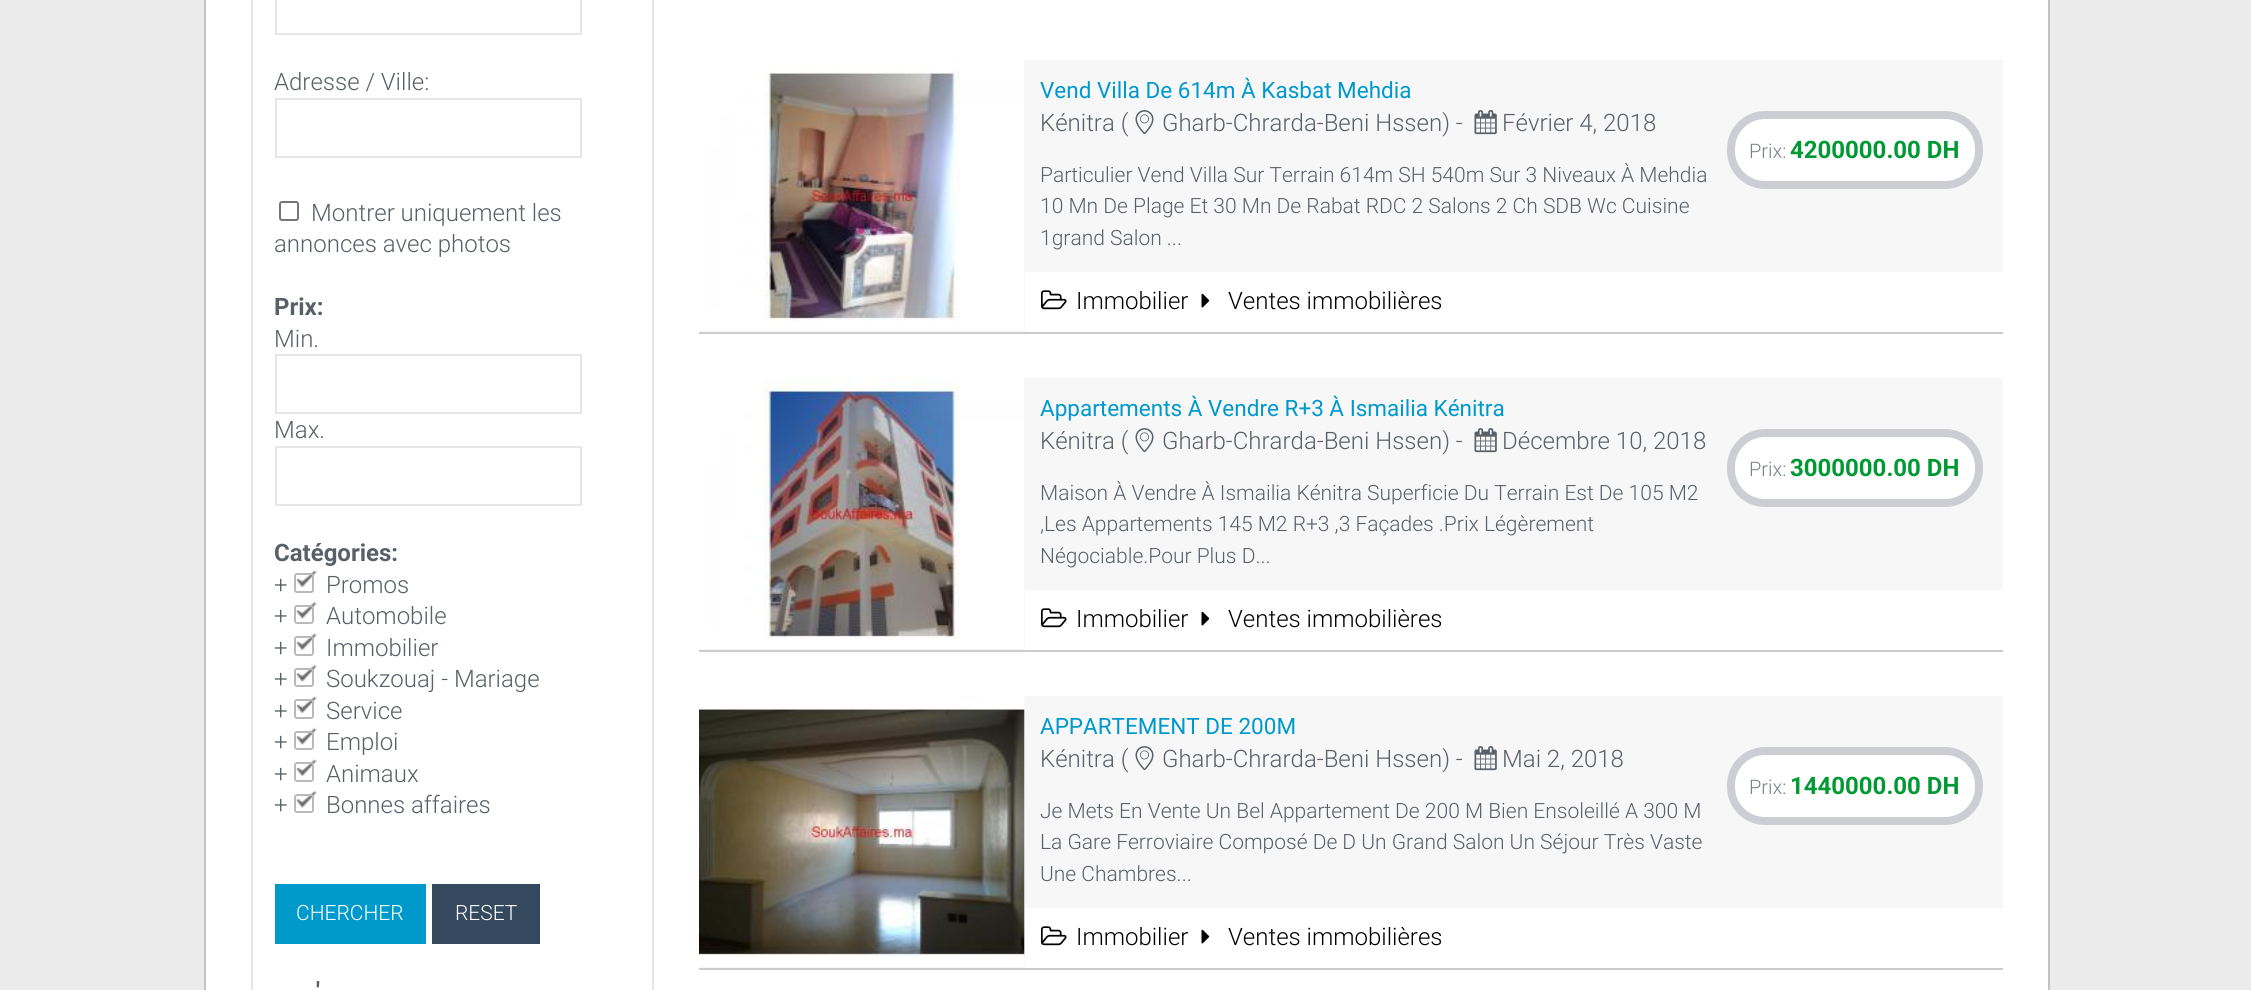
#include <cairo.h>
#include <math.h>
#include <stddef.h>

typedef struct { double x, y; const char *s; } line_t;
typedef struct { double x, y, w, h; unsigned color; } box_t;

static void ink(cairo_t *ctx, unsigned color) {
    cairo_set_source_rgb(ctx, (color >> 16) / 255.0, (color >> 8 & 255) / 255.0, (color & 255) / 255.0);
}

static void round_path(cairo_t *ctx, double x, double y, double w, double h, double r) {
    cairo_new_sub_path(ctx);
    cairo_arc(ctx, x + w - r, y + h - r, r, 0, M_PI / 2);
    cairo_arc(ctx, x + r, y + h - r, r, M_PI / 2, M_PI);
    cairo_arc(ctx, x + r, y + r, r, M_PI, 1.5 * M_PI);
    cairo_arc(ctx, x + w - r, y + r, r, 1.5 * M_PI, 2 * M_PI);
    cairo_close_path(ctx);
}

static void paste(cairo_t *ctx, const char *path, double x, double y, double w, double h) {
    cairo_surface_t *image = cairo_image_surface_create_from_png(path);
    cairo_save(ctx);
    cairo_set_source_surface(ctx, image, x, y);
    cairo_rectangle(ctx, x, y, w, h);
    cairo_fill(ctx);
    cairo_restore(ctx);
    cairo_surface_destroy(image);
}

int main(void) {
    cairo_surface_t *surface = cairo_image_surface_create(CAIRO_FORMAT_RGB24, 2251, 990);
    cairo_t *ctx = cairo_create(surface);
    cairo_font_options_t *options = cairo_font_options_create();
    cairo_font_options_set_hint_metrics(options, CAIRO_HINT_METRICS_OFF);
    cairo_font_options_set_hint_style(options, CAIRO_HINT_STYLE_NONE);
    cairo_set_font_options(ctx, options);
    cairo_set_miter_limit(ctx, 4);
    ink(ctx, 0xEBEBEB);
    cairo_paint(ctx);
    {
        static const box_t items[] = {
            {206, 0, 1842, 990, 0xFFFFFF},
            {2048, 0, 2, 990, 0xC3C3C3},
            {204, 0, 2, 990, 0xC3C3C3},
        };
        for (size_t i = 0; i < sizeof items / sizeof *items; i++) {
            ink(ctx, items[i].color);
            cairo_rectangle(ctx, items[i].x, items[i].y, items[i].w, items[i].h);
            cairo_fill(ctx);
        }
    }
    cairo_rectangle(ctx, 252, -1, 401, 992);
    ink(ctx, 0xE6E6E6);
    cairo_stroke(ctx);
    cairo_rectangle(ctx, 276, -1, 305, 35);
    cairo_stroke(ctx);
    cairo_select_font_face(ctx, "Roboto Light", CAIRO_FONT_SLANT_NORMAL, CAIRO_FONT_WEIGHT_NORMAL);
    cairo_set_font_size(ctx, 24);
    ink(ctx, 0x596067);
    cairo_move_to(ctx, 274, 90);
    cairo_show_text(ctx, "Adresse / Ville:");
    cairo_rectangle(ctx, 276, 99, 305, 58);
    ink(ctx, 0xE6E6E6);
    cairo_stroke(ctx);
    round_path(ctx, 280, 202, 18, 18, 2);
    ink(ctx, 0x767676);
    cairo_stroke(ctx);
    ink(ctx, 0x596067);
    cairo_move_to(ctx, 311, 221);
    cairo_show_text(ctx, "Montrer uniquement les");
    cairo_move_to(ctx, 274, 252);
    cairo_show_text(ctx, "annonces avec photos");
    cairo_select_font_face(ctx, "Roboto", CAIRO_FONT_SLANT_NORMAL, CAIRO_FONT_WEIGHT_BOLD);
    cairo_move_to(ctx, 274, 315);
    cairo_show_text(ctx, "Prix:");
    cairo_select_font_face(ctx, "Roboto Light", CAIRO_FONT_SLANT_NORMAL, CAIRO_FONT_WEIGHT_NORMAL);
    cairo_move_to(ctx, 274, 347);
    cairo_show_text(ctx, "Min.");
    cairo_rectangle(ctx, 276, 355, 305, 58);
    ink(ctx, 0xE6E6E6);
    cairo_stroke(ctx);
    ink(ctx, 0x596067);
    cairo_move_to(ctx, 274, 438);
    cairo_show_text(ctx, "Max.");
    cairo_rectangle(ctx, 276, 447, 305, 58);
    ink(ctx, 0xE6E6E6);
    cairo_stroke(ctx);
    cairo_select_font_face(ctx, "Roboto", CAIRO_FONT_SLANT_NORMAL, CAIRO_FONT_WEIGHT_BOLD);
    ink(ctx, 0x596067);
    cairo_move_to(ctx, 274, 561);
    cairo_show_text(ctx, "Catégories:");
    cairo_select_font_face(ctx, "Roboto Light", CAIRO_FONT_SLANT_NORMAL, CAIRO_FONT_WEIGHT_NORMAL);
    cairo_move_to(ctx, 274, 593);
    cairo_show_text(ctx, "+");
    paste(ctx, "media/1.png", 296, 570, 21, 18);
    round_path(ctx, 295, 574, 18, 18, 2);
    ink(ctx, 0xBABABA);
    cairo_stroke(ctx);
    ink(ctx, 0x596067);
    cairo_move_to(ctx, 326, 593);
    cairo_show_text(ctx, "Promos");
    cairo_move_to(ctx, 274, 624);
    cairo_show_text(ctx, "+");
    paste(ctx, "media/2.png", 296, 601, 21, 18);
    round_path(ctx, 295, 606, 18, 17, 2);
    ink(ctx, 0xBABABA);
    cairo_stroke(ctx);
    ink(ctx, 0x596067);
    cairo_move_to(ctx, 326, 624);
    cairo_show_text(ctx, "Automobile");
    cairo_move_to(ctx, 274, 656);
    cairo_show_text(ctx, "+");
    paste(ctx, "media/1.png", 296, 633, 21, 18);
    round_path(ctx, 295, 637, 18, 18, 2);
    ink(ctx, 0xBABABA);
    cairo_stroke(ctx);
    ink(ctx, 0x596067);
    cairo_move_to(ctx, 326, 656);
    cairo_show_text(ctx, "Immobilier");
    cairo_move_to(ctx, 274, 687);
    cairo_show_text(ctx, "+");
    paste(ctx, "media/2.png", 296, 664, 21, 18);
    round_path(ctx, 295, 669, 18, 17, 2);
    ink(ctx, 0xBABABA);
    cairo_stroke(ctx);
    ink(ctx, 0x596067);
    cairo_move_to(ctx, 326, 687);
    cairo_show_text(ctx, "Soukzouaj - Mariage");
    cairo_move_to(ctx, 274, 719);
    cairo_show_text(ctx, "+");
    paste(ctx, "media/1.png", 296, 696, 21, 18);
    round_path(ctx, 295, 700, 18, 18, 2);
    ink(ctx, 0xBABABA);
    cairo_stroke(ctx);
    ink(ctx, 0x596067);
    cairo_move_to(ctx, 326, 719);
    cairo_show_text(ctx, "Service");
    cairo_move_to(ctx, 274, 750);
    cairo_show_text(ctx, "+");
    paste(ctx, "media/2.png", 296, 727, 21, 18);
    round_path(ctx, 295, 732, 18, 17, 2);
    ink(ctx, 0xBABABA);
    cairo_stroke(ctx);
    ink(ctx, 0x596067);
    cairo_move_to(ctx, 326, 750);
    cairo_show_text(ctx, "Emploi");
    cairo_move_to(ctx, 274, 782);
    cairo_show_text(ctx, "+");
    paste(ctx, "media/1.png", 296, 759, 21, 18);
    round_path(ctx, 295, 763, 18, 18, 2);
    ink(ctx, 0xBABABA);
    cairo_stroke(ctx);
    ink(ctx, 0x596067);
    cairo_move_to(ctx, 326, 782);
    cairo_show_text(ctx, "Animaux");
    cairo_move_to(ctx, 274, 813);
    cairo_show_text(ctx, "+");
    paste(ctx, "media/2.png", 296, 790, 21, 18);
    round_path(ctx, 295, 795, 18, 17, 2);
    ink(ctx, 0xBABABA);
    cairo_stroke(ctx);
    ink(ctx, 0x596067);
    cairo_move_to(ctx, 326, 813);
    cairo_show_text(ctx, "Bonnes affaires");
    ink(ctx, 0x0099CC);
    cairo_rectangle(ctx, 275, 884, 151, 60);
    cairo_fill(ctx);
    cairo_set_font_size(ctx, 21);
    ink(ctx, 0xFFFFFF);
    cairo_move_to(ctx, 296, 920);
    cairo_show_text(ctx, "CHERCHER");
    ink(ctx, 0x34495E);
    cairo_rectangle(ctx, 432, 884, 108, 60);
    cairo_fill(ctx);
    ink(ctx, 0xFFFFFF);
    cairo_move_to(ctx, 455, 920);
    cairo_show_text(ctx, "RESET");
    cairo_select_font_face(ctx, "Roboto", CAIRO_FONT_SLANT_NORMAL, CAIRO_FONT_WEIGHT_BOLD);
    cairo_set_font_size(ctx, 24);
    ink(ctx, 0x596067);
    cairo_move_to(ctx, 316, 999);
    cairo_show_text(ctx, "'");
    ink(ctx, 0xF7F7F7);
    cairo_rectangle(ctx, 699, 60, 1304, 272);
    cairo_fill(ctx);
    ink(ctx, 0xCCCCCC);
    cairo_rectangle(ctx, 699, 332, 1304, 2);
    cairo_fill(ctx);
    paste(ctx, "media/3.png", 699, 60, 325, 271);
    cairo_select_font_face(ctx, "Roboto", CAIRO_FONT_SLANT_NORMAL, CAIRO_FONT_WEIGHT_NORMAL);
    cairo_set_font_size(ctx, 22.5);
    ink(ctx, 0x0099CC);
    cairo_move_to(ctx, 1040, 98);
    cairo_show_text(ctx, "Vend Villa De 614m À Kasbat Mehdia");
    cairo_select_font_face(ctx, "Roboto Light", CAIRO_FONT_SLANT_NORMAL, CAIRO_FONT_WEIGHT_NORMAL);
    cairo_set_font_size(ctx, 24);
    ink(ctx, 0x596067);
    cairo_move_to(ctx, 1040, 131);
    cairo_show_text(ctx, "Kénitra (");
    paste(ctx, "media/4.png", 1135, 110, 19, 25);
    cairo_move_to(ctx, 1162, 131);
    cairo_show_text(ctx, "Gharb-Chrarda-Beni Hssen) -");
    paste(ctx, "media/5.png", 1474, 110, 23, 25);
    cairo_move_to(ctx, 1502, 131);
    cairo_show_text(ctx, "Février 4, 2018");
    ink(ctx, 0xFFFFFF);
    round_path(ctx, 1731, 115, 248, 70, 34);
    cairo_fill_preserve(ctx);
    ink(ctx, 0xCCCED4);
    cairo_set_line_width(ctx, 8);
    cairo_stroke(ctx);
    cairo_set_font_size(ctx, 20);
    ink(ctx, 0x7A8188);
    cairo_move_to(ctx, 1749, 158);
    cairo_show_text(ctx, "Prix:");
    cairo_select_font_face(ctx, "Roboto", CAIRO_FONT_SLANT_NORMAL, CAIRO_FONT_WEIGHT_BOLD);
    cairo_set_font_size(ctx, 24);
    ink(ctx, 0x009933);
    cairo_move_to(ctx, 1790, 158);
    cairo_show_text(ctx, "4200000.00 DH");
    cairo_select_font_face(ctx, "Roboto Light", CAIRO_FONT_SLANT_NORMAL, CAIRO_FONT_WEIGHT_NORMAL);
    cairo_set_font_size(ctx, 21);
    ink(ctx, 0x596067);
    {
        static const line_t items[] = {
            {1040, 182, "Particulier Vend Villa Sur Terrain 614m SH 540m Sur 3 Niveaux À Mehdia"},
            {1040, 213, "10 Mn De Plage Et 30 Mn De Rabat RDC 2 Salons 2 Ch SDB Wc Cuisine"},
            {1040, 245, "1grand Salon ..."},
        };
        for (size_t i = 0; i < sizeof items / sizeof *items; i++) {
            cairo_move_to(ctx, items[i].x, items[i].y);
            cairo_show_text(ctx, items[i].s);
        }
    }
    ink(ctx, 0xFFFFFF);
    cairo_rectangle(ctx, 1025, 272, 978, 60);
    cairo_fill(ctx);
    paste(ctx, "media/6.png", 1041, 290, 26, 20);
    cairo_set_font_size(ctx, 24);
    ink(ctx, 0x000000);
    cairo_move_to(ctx, 1076, 309);
    cairo_show_text(ctx, "Immobilier");
    paste(ctx, "media/7.png", 1201, 293, 9, 15);
    cairo_move_to(ctx, 1228, 309);
    cairo_show_text(ctx, "Ventes immobilières");
    ink(ctx, 0xF7F7F7);
    cairo_rectangle(ctx, 699, 378, 1304, 272);
    cairo_fill(ctx);
    ink(ctx, 0xCCCCCC);
    cairo_rectangle(ctx, 699, 650, 1304, 2);
    cairo_fill(ctx);
    paste(ctx, "media/8.png", 699, 378, 325, 271);
    cairo_select_font_face(ctx, "Roboto", CAIRO_FONT_SLANT_NORMAL, CAIRO_FONT_WEIGHT_NORMAL);
    cairo_set_font_size(ctx, 22.5);
    ink(ctx, 0x0099CC);
    cairo_move_to(ctx, 1040, 416);
    cairo_show_text(ctx, "Appartements À Vendre R+3 À Ismailia Kénitra");
    cairo_select_font_face(ctx, "Roboto Light", CAIRO_FONT_SLANT_NORMAL, CAIRO_FONT_WEIGHT_NORMAL);
    cairo_set_font_size(ctx, 24);
    ink(ctx, 0x596067);
    cairo_move_to(ctx, 1040, 449);
    cairo_show_text(ctx, "Kénitra (");
    paste(ctx, "media/4.png", 1135, 428, 19, 25);
    cairo_move_to(ctx, 1162, 449);
    cairo_show_text(ctx, "Gharb-Chrarda-Beni Hssen) -");
    paste(ctx, "media/5.png", 1474, 428, 23, 25);
    cairo_move_to(ctx, 1502, 449);
    cairo_show_text(ctx, "Décembre 10, 2018");
    ink(ctx, 0xFFFFFF);
    round_path(ctx, 1731, 433, 248, 70, 34);
    cairo_fill_preserve(ctx);
    ink(ctx, 0xCCCED4);
    cairo_stroke(ctx);
    cairo_set_font_size(ctx, 20);
    ink(ctx, 0x7A8188);
    cairo_move_to(ctx, 1749, 476);
    cairo_show_text(ctx, "Prix:");
    cairo_select_font_face(ctx, "Roboto", CAIRO_FONT_SLANT_NORMAL, CAIRO_FONT_WEIGHT_BOLD);
    cairo_set_font_size(ctx, 24);
    ink(ctx, 0x009933);
    cairo_move_to(ctx, 1790, 476);
    cairo_show_text(ctx, "3000000.00 DH");
    cairo_select_font_face(ctx, "Roboto Light", CAIRO_FONT_SLANT_NORMAL, CAIRO_FONT_WEIGHT_NORMAL);
    cairo_set_font_size(ctx, 21);
    ink(ctx, 0x596067);
    {
        static const line_t items[] = {
            {1040, 500, "Maison À Vendre À Ismailia Kénitra Superficie Du Terrain Est De 105 M2"},
            {1040, 531, ",Les Appartements 145 M2 R+3 ,3 Façades .Prix Légèrement"},
            {1040, 563, "Négociable.Pour Plus D..."},
        };
        for (size_t i = 0; i < sizeof items / sizeof *items; i++) {
            cairo_move_to(ctx, items[i].x, items[i].y);
            cairo_show_text(ctx, items[i].s);
        }
    }
    ink(ctx, 0xFFFFFF);
    cairo_rectangle(ctx, 1025, 590, 978, 60);
    cairo_fill(ctx);
    paste(ctx, "media/6.png", 1041, 608, 26, 20);
    cairo_set_font_size(ctx, 24);
    ink(ctx, 0x000000);
    cairo_move_to(ctx, 1076, 627);
    cairo_show_text(ctx, "Immobilier");
    paste(ctx, "media/7.png", 1201, 611, 9, 15);
    cairo_move_to(ctx, 1228, 627);
    cairo_show_text(ctx, "Ventes immobilières");
    ink(ctx, 0xF7F7F7);
    cairo_rectangle(ctx, 699, 696, 1304, 272);
    cairo_fill(ctx);
    ink(ctx, 0xCCCCCC);
    cairo_rectangle(ctx, 699, 968, 1304, 2);
    cairo_fill(ctx);
    paste(ctx, "media/9.png", 699, 696, 326, 271);
    cairo_select_font_face(ctx, "Roboto", CAIRO_FONT_SLANT_NORMAL, CAIRO_FONT_WEIGHT_NORMAL);
    cairo_set_font_size(ctx, 22.5);
    ink(ctx, 0x0099CC);
    cairo_move_to(ctx, 1040, 734);
    cairo_show_text(ctx, "APPARTEMENT DE 200M");
    cairo_select_font_face(ctx, "Roboto Light", CAIRO_FONT_SLANT_NORMAL, CAIRO_FONT_WEIGHT_NORMAL);
    cairo_set_font_size(ctx, 24);
    ink(ctx, 0x596067);
    cairo_move_to(ctx, 1040, 767);
    cairo_show_text(ctx, "Kénitra (");
    paste(ctx, "media/4.png", 1135, 746, 19, 25);
    cairo_move_to(ctx, 1162, 767);
    cairo_show_text(ctx, "Gharb-Chrarda-Beni Hssen) -");
    paste(ctx, "media/5.png", 1474, 746, 23, 25);
    cairo_move_to(ctx, 1502, 767);
    cairo_show_text(ctx, "Mai 2, 2018");
    ink(ctx, 0xFFFFFF);
    round_path(ctx, 1731, 751, 248, 70, 34);
    cairo_fill_preserve(ctx);
    ink(ctx, 0xCCCED4);
    cairo_stroke(ctx);
    cairo_set_font_size(ctx, 20);
    ink(ctx, 0x7A8188);
    cairo_move_to(ctx, 1749, 794);
    cairo_show_text(ctx, "Prix:");
    cairo_select_font_face(ctx, "Roboto", CAIRO_FONT_SLANT_NORMAL, CAIRO_FONT_WEIGHT_BOLD);
    cairo_set_font_size(ctx, 24);
    ink(ctx, 0x009933);
    cairo_move_to(ctx, 1790, 794);
    cairo_show_text(ctx, "1440000.00 DH");
    cairo_select_font_face(ctx, "Roboto Light", CAIRO_FONT_SLANT_NORMAL, CAIRO_FONT_WEIGHT_NORMAL);
    cairo_set_font_size(ctx, 21);
    ink(ctx, 0x596067);
    {
        static const line_t items[] = {
            {1040, 818, "Je Mets En Vente Un Bel Appartement De 200 M Bien Ensoleillé A 300 M"},
            {1040, 849, "La Gare Ferroviaire Composé De D Un Grand Salon Un Séjour Très Vaste"},
            {1040, 881, "Une Chambres..."},
        };
        for (size_t i = 0; i < sizeof items / sizeof *items; i++) {
            cairo_move_to(ctx, items[i].x, items[i].y);
            cairo_show_text(ctx, items[i].s);
        }
    }
    ink(ctx, 0xFFFFFF);
    cairo_rectangle(ctx, 1025, 908, 978, 60);
    cairo_fill(ctx);
    paste(ctx, "media/6.png", 1041, 926, 26, 20);
    cairo_set_font_size(ctx, 24);
    ink(ctx, 0x000000);
    cairo_move_to(ctx, 1076, 945);
    cairo_show_text(ctx, "Immobilier");
    paste(ctx, "media/7.png", 1201, 929, 9, 15);
    cairo_move_to(ctx, 1228, 945);
    cairo_show_text(ctx, "Ventes immobilières");
    cairo_surface_write_to_png(surface, "image.png");
    cairo_font_options_destroy(options);
    cairo_destroy(ctx);
    cairo_surface_destroy(surface);
    return 0;
}
